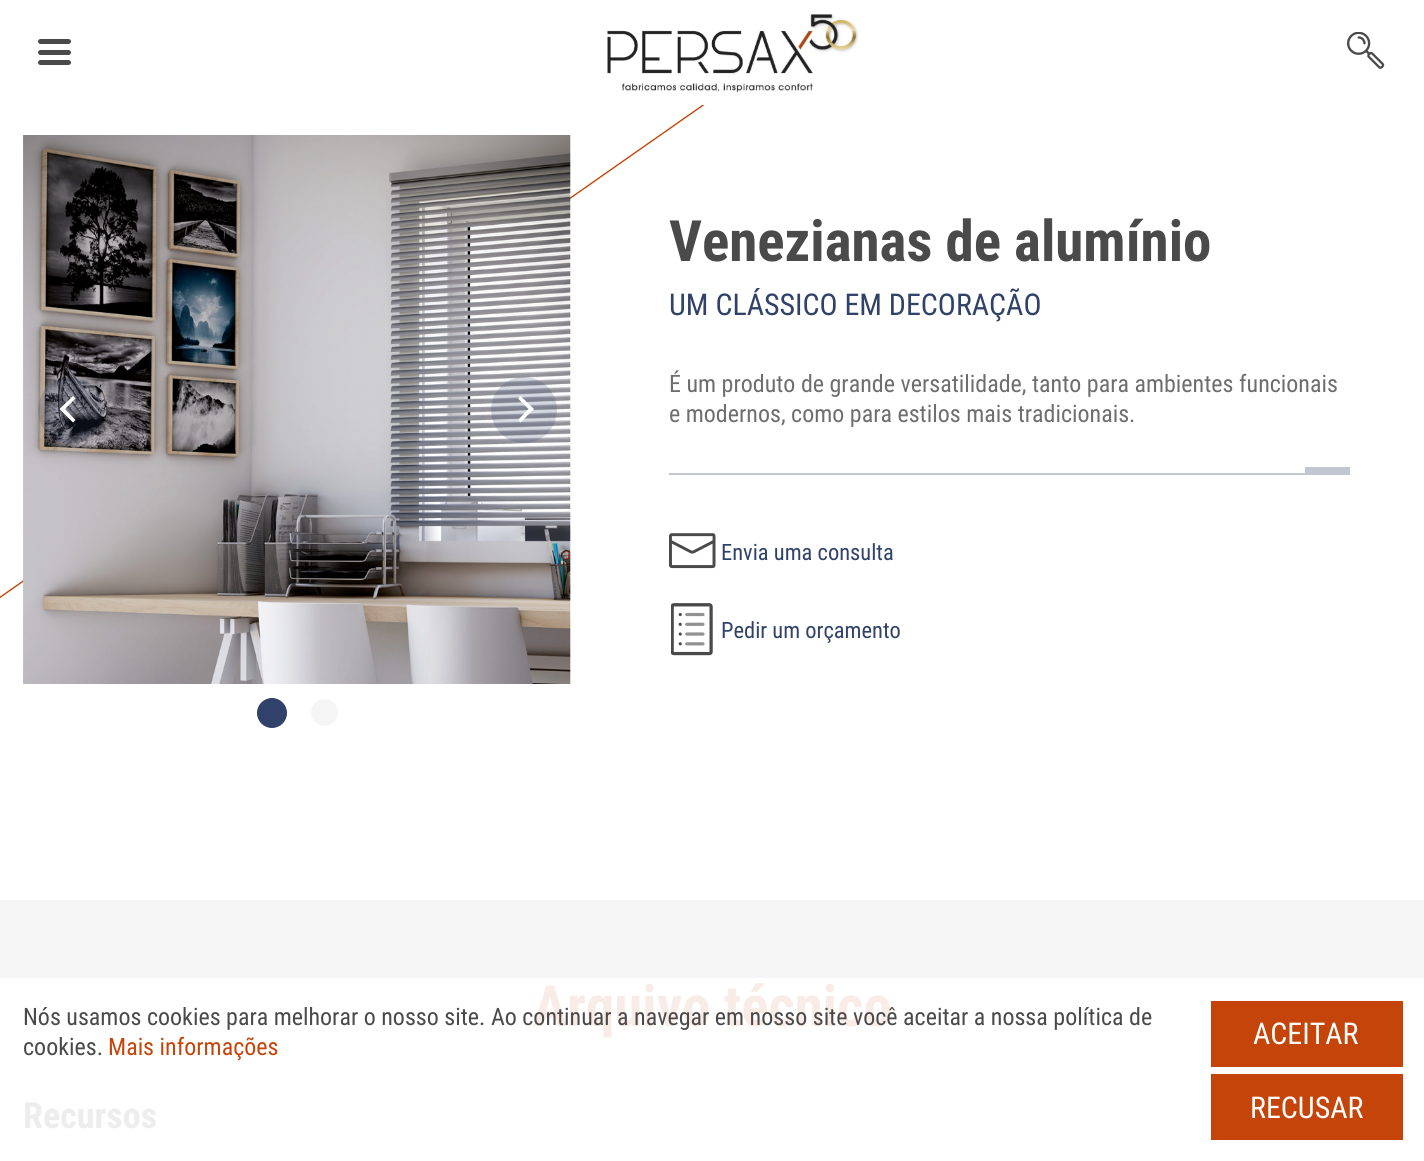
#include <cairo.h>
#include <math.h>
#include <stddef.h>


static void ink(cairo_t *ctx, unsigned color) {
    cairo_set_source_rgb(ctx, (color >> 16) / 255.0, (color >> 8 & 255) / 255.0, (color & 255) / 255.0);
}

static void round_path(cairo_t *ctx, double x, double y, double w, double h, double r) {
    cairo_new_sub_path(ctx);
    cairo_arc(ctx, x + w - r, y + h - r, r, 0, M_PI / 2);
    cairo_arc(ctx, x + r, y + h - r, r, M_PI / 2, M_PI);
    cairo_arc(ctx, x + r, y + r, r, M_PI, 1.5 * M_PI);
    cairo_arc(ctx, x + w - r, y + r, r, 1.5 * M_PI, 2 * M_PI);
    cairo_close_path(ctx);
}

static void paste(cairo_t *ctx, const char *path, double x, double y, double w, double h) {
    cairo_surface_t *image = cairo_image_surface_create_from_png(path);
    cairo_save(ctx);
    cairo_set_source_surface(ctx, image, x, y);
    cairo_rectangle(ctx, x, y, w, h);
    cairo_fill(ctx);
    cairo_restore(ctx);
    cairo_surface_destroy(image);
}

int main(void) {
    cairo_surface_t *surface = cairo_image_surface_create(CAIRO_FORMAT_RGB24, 1424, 1161);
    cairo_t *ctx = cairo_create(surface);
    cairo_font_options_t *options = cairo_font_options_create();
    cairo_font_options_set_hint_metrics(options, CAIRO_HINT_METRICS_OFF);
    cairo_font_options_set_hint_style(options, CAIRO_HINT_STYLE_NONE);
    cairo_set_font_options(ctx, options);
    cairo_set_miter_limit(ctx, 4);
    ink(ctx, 0xFFFFFF);
    cairo_paint(ctx);
    ink(ctx, 0xC54409);
    cairo_new_path(ctx);
    cairo_move_to(ctx, -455, 915);
    cairo_line_to(ctx, 712, 98);
    cairo_line_to(ctx, 713, 99);
    cairo_line_to(ctx, -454, 916);
    cairo_close_path(ctx);
    cairo_fill(ctx);
    ink(ctx, 0xFFFFFF);
    cairo_rectangle(ctx, 702, 98, 11, 7);
    cairo_fill(ctx);
    ink(ctx, 0x4A4A4A);
    round_path(ctx, 38, 50, 33, 5, 2.5);
    cairo_fill(ctx);
    round_path(ctx, 38, 39, 33, 5, 2.5);
    cairo_fill(ctx);
    round_path(ctx, 38, 60, 33, 5, 2.5);
    cairo_fill(ctx);
    paste(ctx, "media/1.png", 607, 14, 252, 79);
    paste(ctx, "media/2.png", 1347, 32, 38, 37);
    paste(ctx, "media/3.png", 23, 135, 548, 549);
    cairo_set_source_rgba(ctx, 0.188, 0.259, 0.412, 0.2);
    cairo_arc(ctx, 71, 410, 33, 0, 2 * M_PI);
    cairo_fill(ctx);
    ink(ctx, 0xFFFFFF);
    cairo_new_path(ctx);
    cairo_move_to(ctx, 59.5, 409);
    cairo_line_to(ctx, 73, 422.5);
    cairo_line_to(ctx, 75.5, 420);
    cairo_line_to(ctx, 65, 409);
    cairo_line_to(ctx, 75.5, 398.5);
    cairo_line_to(ctx, 73, 396);
    cairo_close_path(ctx);
    cairo_fill(ctx);
    cairo_set_source_rgba(ctx, 0.188, 0.259, 0.412, 0.2);
    cairo_arc(ctx, 524, 410, 33, 0, 2 * M_PI);
    cairo_fill(ctx);
    ink(ctx, 0xFFFFFF);
    cairo_new_path(ctx);
    cairo_move_to(ctx, 534, 409);
    cairo_line_to(ctx, 520.5, 396);
    cairo_line_to(ctx, 518, 398.5);
    cairo_line_to(ctx, 528.5, 409);
    cairo_line_to(ctx, 518, 420);
    cairo_line_to(ctx, 520.5, 422.5);
    cairo_close_path(ctx);
    cairo_fill(ctx);
    ink(ctx, 0x304269);
    cairo_arc(ctx, 272, 713, 15, 0, 2 * M_PI);
    cairo_fill(ctx);
    ink(ctx, 0xF5F5F5);
    cairo_arc(ctx, 324.5, 712.5, 13.5, 0, 2 * M_PI);
    cairo_fill(ctx);
    cairo_select_font_face(ctx, "Roboto Condensed", CAIRO_FONT_SLANT_NORMAL, CAIRO_FONT_WEIGHT_BOLD);
    cairo_set_font_size(ctx, 57);
    ink(ctx, 0x4A4A4A);
    cairo_move_to(ctx, 669, 261);
    cairo_show_text(ctx, "Venezianas de alumínio");
    cairo_select_font_face(ctx, "Roboto Condensed", CAIRO_FONT_SLANT_NORMAL, CAIRO_FONT_WEIGHT_NORMAL);
    cairo_set_font_size(ctx, 30);
    ink(ctx, 0x304269);
    cairo_move_to(ctx, 669, 315);
    cairo_show_text(ctx, "UM CLÁSSICO EM DECORAÇÃO");
    cairo_set_font_size(ctx, 24);
    ink(ctx, 0x6E6E6E);
    cairo_move_to(ctx, 669, 392);
    cairo_show_text(ctx, "É um produto de grande versatilidade, tanto para ambientes funcionais");
    cairo_move_to(ctx, 669, 422);
    cairo_show_text(ctx, "e modernos, como para estilos mais tradicionais.");
    ink(ctx, 0xC1C6D2);
    cairo_rectangle(ctx, 669, 473, 681, 2);
    cairo_fill(ctx);
    cairo_rectangle(ctx, 1305, 467, 45, 6);
    cairo_fill(ctx);
    paste(ctx, "media/4.png", 669, 533, 47, 36);
    cairo_set_font_size(ctx, 22.5);
    ink(ctx, 0x304269);
    cairo_move_to(ctx, 721, 560);
    cairo_show_text(ctx, "Envia uma consulta");
    paste(ctx, "media/5.png", 671, 603, 42, 53);
    cairo_move_to(ctx, 721, 638);
    cairo_show_text(ctx, "Pedir um orçamento");
    ink(ctx, 0xF5F5F5);
    cairo_rectangle(ctx, 0, 900, 1424, 78);
    cairo_fill(ctx);
    cairo_select_font_face(ctx, "Roboto Condensed", CAIRO_FONT_SLANT_NORMAL, CAIRO_FONT_WEIGHT_BOLD);
    cairo_set_font_size(ctx, 57);
    ink(ctx, 0xF9ECE6);
    cairo_move_to(ctx, 533, 1026);
    cairo_show_text(ctx, "Arquivo técnico");
    cairo_set_font_size(ctx, 36);
    ink(ctx, 0xEDEDED);
    cairo_move_to(ctx, 23, 1128);
    cairo_show_text(ctx, "Recursos");
    cairo_select_font_face(ctx, "Roboto Condensed", CAIRO_FONT_SLANT_NORMAL, CAIRO_FONT_WEIGHT_NORMAL);
    cairo_set_font_size(ctx, 24);
    ink(ctx, 0x4A4A4A);
    cairo_move_to(ctx, 23, 1025);
    cairo_show_text(ctx, "Nós usamos cookies para melhorar o nosso site. Ao continuar a navegar em nosso site você aceitar a nossa política de");
    cairo_move_to(ctx, 23, 1055);
    cairo_show_text(ctx, "cookies.");
    ink(ctx, 0xC54409);
    cairo_move_to(ctx, 108, 1055);
    cairo_show_text(ctx, "Mais informações");
    cairo_rectangle(ctx, 1211, 1001, 192, 66);
    cairo_fill(ctx);
    cairo_set_font_size(ctx, 30);
    ink(ctx, 0xFFFFFF);
    cairo_move_to(ctx, 1253, 1044);
    cairo_show_text(ctx, "ACEITAR");
    ink(ctx, 0xC54409);
    cairo_rectangle(ctx, 1211, 1074, 192, 66);
    cairo_fill(ctx);
    ink(ctx, 0xFFFFFF);
    cairo_move_to(ctx, 1250, 1118);
    cairo_show_text(ctx, "RECUSAR");
    cairo_surface_write_to_png(surface, "image.png");
    cairo_font_options_destroy(options);
    cairo_destroy(ctx);
    cairo_surface_destroy(surface);
    return 0;
}
